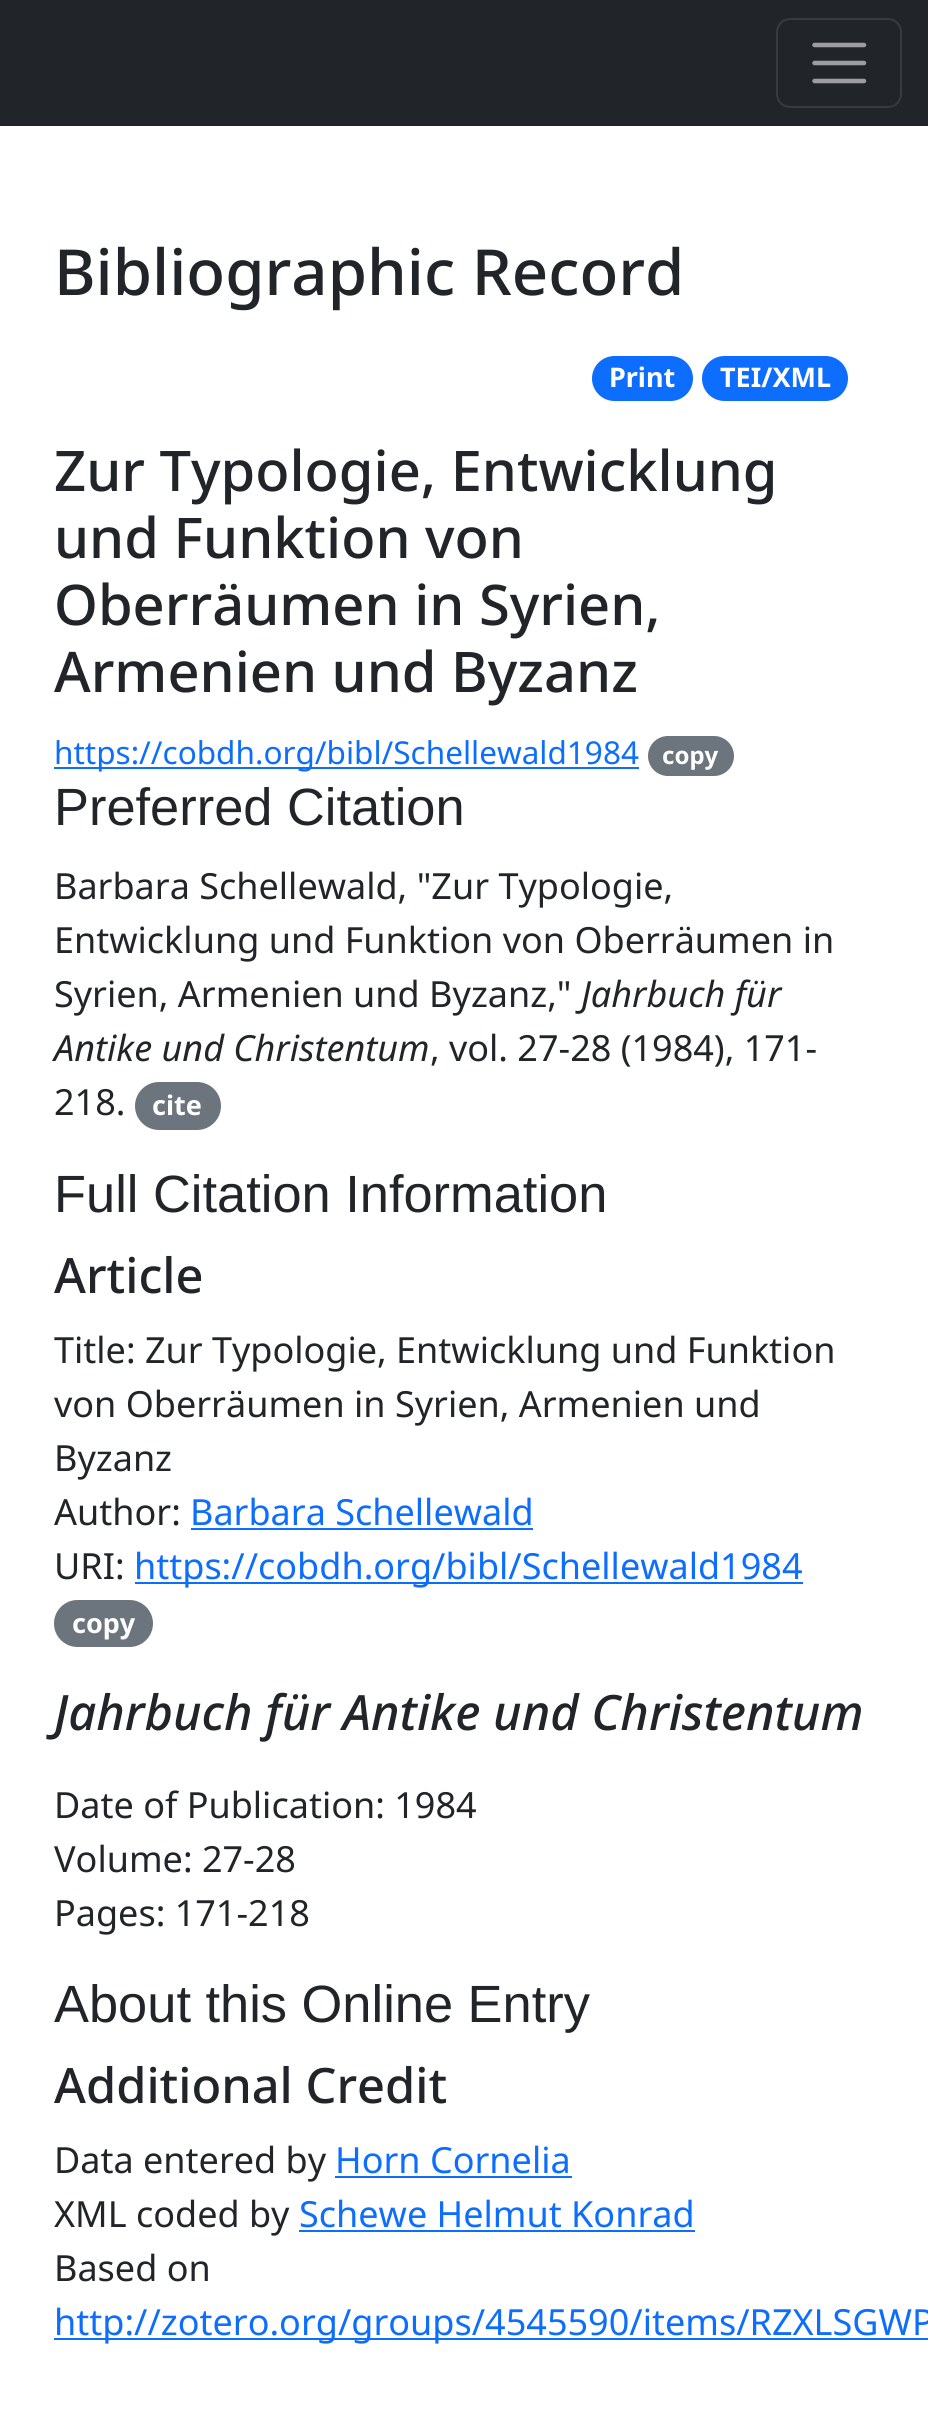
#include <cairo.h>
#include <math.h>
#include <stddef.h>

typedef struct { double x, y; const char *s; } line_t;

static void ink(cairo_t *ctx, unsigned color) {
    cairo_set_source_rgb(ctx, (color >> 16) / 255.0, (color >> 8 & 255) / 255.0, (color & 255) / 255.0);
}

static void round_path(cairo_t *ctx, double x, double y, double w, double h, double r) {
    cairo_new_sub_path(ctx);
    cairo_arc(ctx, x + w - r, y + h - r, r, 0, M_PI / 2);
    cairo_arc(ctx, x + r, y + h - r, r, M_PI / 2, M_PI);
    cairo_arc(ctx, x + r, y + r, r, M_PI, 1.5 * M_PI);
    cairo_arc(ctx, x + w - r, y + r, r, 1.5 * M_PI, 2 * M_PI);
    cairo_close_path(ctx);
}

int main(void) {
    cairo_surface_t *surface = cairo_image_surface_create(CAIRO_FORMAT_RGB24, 928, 2423);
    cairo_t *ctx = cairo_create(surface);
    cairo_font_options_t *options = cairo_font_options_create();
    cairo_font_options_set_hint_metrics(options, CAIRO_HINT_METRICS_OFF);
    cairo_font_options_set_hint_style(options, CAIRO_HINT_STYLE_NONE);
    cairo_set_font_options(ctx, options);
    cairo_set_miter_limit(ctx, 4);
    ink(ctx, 0xFFFFFF);
    cairo_paint(ctx);
    ink(ctx, 0x212529);
    cairo_rectangle(ctx, 0, 0, 928, 126);
    cairo_fill(ctx);
    round_path(ctx, 777, 19, 124, 88, 13);
    ink(ctx, 0x373B3E);
    cairo_stroke(ctx);
    cairo_new_path(ctx);
    cairo_move_to(ctx, 814.5, 45);
    cairo_line_to(ctx, 864, 45);
    cairo_move_to(ctx, 814.5, 63);
    cairo_line_to(ctx, 864, 63);
    cairo_move_to(ctx, 814.5, 81);
    cairo_line_to(ctx, 864, 81);
    ink(ctx, 0x9B9D9F);
    cairo_set_line_width(ctx, 4.5);
    cairo_set_line_cap(ctx, CAIRO_LINE_CAP_ROUND);
    cairo_stroke(ctx);
    cairo_select_font_face(ctx, "Noto Sans Medium", CAIRO_FONT_SLANT_NORMAL, CAIRO_FONT_WEIGHT_NORMAL);
    cairo_set_font_size(ctx, 63.5);
    ink(ctx, 0x212529);
    cairo_move_to(ctx, 54, 295);
    cairo_show_text(ctx, "Bibliographic Record");
    ink(ctx, 0x0D6EFD);
    round_path(ctx, 592, 356, 101, 45, 22.5);
    cairo_fill(ctx);
    cairo_select_font_face(ctx, "Noto Sans", CAIRO_FONT_SLANT_NORMAL, CAIRO_FONT_WEIGHT_BOLD);
    cairo_set_font_size(ctx, 27);
    ink(ctx, 0xFFFFFF);
    cairo_move_to(ctx, 609, 387);
    cairo_show_text(ctx, "Print");
    ink(ctx, 0x0D6EFD);
    round_path(ctx, 702, 356, 146, 45, 22.5);
    cairo_fill(ctx);
    ink(ctx, 0xFFFFFF);
    cairo_move_to(ctx, 720, 387);
    cairo_show_text(ctx, "TEI/XML");
    cairo_select_font_face(ctx, "Noto Sans Medium", CAIRO_FONT_SLANT_NORMAL, CAIRO_FONT_WEIGHT_NORMAL);
    cairo_set_font_size(ctx, 56);
    ink(ctx, 0x212529);
    {
        static const line_t items[] = {
            {54, 491, "Zur Typologie, Entwicklung"},
            {54, 558, "und Funktion von"},
            {54, 625, "Oberräumen in Syrien,"},
            {54, 692, "Armenien und Byzanz"},
        };
        for (size_t i = 0; i < sizeof items / sizeof *items; i++) {
            cairo_move_to(ctx, items[i].x, items[i].y);
            cairo_show_text(ctx, items[i].s);
        }
    }
    ink(ctx, 0x0D6EFD);
    cairo_rectangle(ctx, 54, 767, 585, 2);
    cairo_fill(ctx);
    cairo_select_font_face(ctx, "Noto Sans", CAIRO_FONT_SLANT_NORMAL, CAIRO_FONT_WEIGHT_NORMAL);
    cairo_set_font_size(ctx, 31.5);
    cairo_move_to(ctx, 54, 764);
    cairo_show_text(ctx, "https://cobdh.org/bibl/Schellewald1984");
    ink(ctx, 0x6C757D);
    round_path(ctx, 648, 736, 86, 40, 20);
    cairo_fill(ctx);
    cairo_select_font_face(ctx, "Noto Sans", CAIRO_FONT_SLANT_NORMAL, CAIRO_FONT_WEIGHT_BOLD);
    cairo_set_font_size(ctx, 24);
    ink(ctx, 0xFFFFFF);
    cairo_move_to(ctx, 662, 764);
    cairo_show_text(ctx, "copy");
    cairo_select_font_face(ctx, "Liberation Sans", CAIRO_FONT_SLANT_NORMAL, CAIRO_FONT_WEIGHT_NORMAL);
    cairo_set_font_size(ctx, 52.4);
    ink(ctx, 0x212529);
    cairo_move_to(ctx, 54, 825);
    cairo_show_text(ctx, "Preferred Citation");
    cairo_select_font_face(ctx, "Noto Sans", CAIRO_FONT_SLANT_NORMAL, CAIRO_FONT_WEIGHT_NORMAL);
    cairo_set_font_size(ctx, 36);
    {
        static const line_t items[] = {
            {54, 899, "Barbara Schellewald, \"Zur Typologie,"},
            {54, 953, "Entwicklung und Funktion von Oberräumen in"},
            {54, 1007, "Syrien, Armenien und Byzanz,\""},
        };
        for (size_t i = 0; i < sizeof items / sizeof *items; i++) {
            cairo_move_to(ctx, items[i].x, items[i].y);
            cairo_show_text(ctx, items[i].s);
        }
    }
    cairo_select_font_face(ctx, "Noto Sans", CAIRO_FONT_SLANT_ITALIC, CAIRO_FONT_WEIGHT_NORMAL);
    cairo_move_to(ctx, 581, 1007);
    cairo_show_text(ctx, "Jahrbuch für");
    cairo_move_to(ctx, 54, 1061);
    cairo_show_text(ctx, "Antike und Christentum");
    cairo_select_font_face(ctx, "Noto Sans", CAIRO_FONT_SLANT_NORMAL, CAIRO_FONT_WEIGHT_NORMAL);
    cairo_move_to(ctx, 430, 1061);
    cairo_show_text(ctx, ", vol. 27-28 (1984), 171-");
    cairo_move_to(ctx, 54, 1115);
    cairo_show_text(ctx, "218.");
    ink(ctx, 0x6C757D);
    round_path(ctx, 135, 1082, 86, 48, 24);
    cairo_fill(ctx);
    cairo_select_font_face(ctx, "Noto Sans", CAIRO_FONT_SLANT_NORMAL, CAIRO_FONT_WEIGHT_BOLD);
    cairo_set_font_size(ctx, 27);
    ink(ctx, 0xFFFFFF);
    cairo_move_to(ctx, 152, 1115);
    cairo_show_text(ctx, "cite");
    cairo_select_font_face(ctx, "Liberation Sans", CAIRO_FONT_SLANT_NORMAL, CAIRO_FONT_WEIGHT_NORMAL);
    cairo_set_font_size(ctx, 52.4);
    ink(ctx, 0x212529);
    cairo_move_to(ctx, 54, 1212);
    cairo_show_text(ctx, "Full Citation Information");
    cairo_select_font_face(ctx, "Noto Sans Medium", CAIRO_FONT_SLANT_NORMAL, CAIRO_FONT_WEIGHT_NORMAL);
    cairo_set_font_size(ctx, 48.75);
    cairo_move_to(ctx, 54, 1293);
    cairo_show_text(ctx, "Article");
    cairo_select_font_face(ctx, "Noto Sans", CAIRO_FONT_SLANT_NORMAL, CAIRO_FONT_WEIGHT_NORMAL);
    cairo_set_font_size(ctx, 36);
    {
        static const line_t items[] = {
            {54, 1363, "Title: Zur Typologie, Entwicklung und Funktion"},
            {54, 1417, "von Oberräumen in Syrien, Armenien und"},
            {54, 1471, "Byzanz"},
            {54, 1525, "Author:"},
        };
        for (size_t i = 0; i < sizeof items / sizeof *items; i++) {
            cairo_move_to(ctx, items[i].x, items[i].y);
            cairo_show_text(ctx, items[i].s);
        }
    }
    ink(ctx, 0x0D6EFD);
    cairo_move_to(ctx, 190, 1525);
    cairo_show_text(ctx, "Barbara Schellewald");
    cairo_rectangle(ctx, 191, 1528, 342, 2);
    cairo_fill(ctx);
    ink(ctx, 0x212529);
    cairo_move_to(ctx, 54, 1579);
    cairo_show_text(ctx, "URI:");
    ink(ctx, 0x0D6EFD);
    cairo_rectangle(ctx, 135, 1582, 668, 2);
    cairo_fill(ctx);
    cairo_move_to(ctx, 134, 1579);
    cairo_show_text(ctx, "https://cobdh.org/bibl/Schellewald1984");
    ink(ctx, 0x6C757D);
    round_path(ctx, 54, 1600, 99, 47, 23.5);
    cairo_fill(ctx);
    cairo_select_font_face(ctx, "Noto Sans", CAIRO_FONT_SLANT_NORMAL, CAIRO_FONT_WEIGHT_BOLD);
    cairo_set_font_size(ctx, 27);
    ink(ctx, 0xFFFFFF);
    cairo_move_to(ctx, 72, 1633);
    cairo_show_text(ctx, "copy");
    cairo_select_font_face(ctx, "Noto Sans Medium", CAIRO_FONT_SLANT_ITALIC, CAIRO_FONT_WEIGHT_NORMAL);
    cairo_set_font_size(ctx, 48.75);
    ink(ctx, 0x212529);
    cairo_move_to(ctx, 54, 1730);
    cairo_show_text(ctx, "Jahrbuch für Antike und Christentum");
    cairo_select_font_face(ctx, "Noto Sans", CAIRO_FONT_SLANT_NORMAL, CAIRO_FONT_WEIGHT_NORMAL);
    cairo_set_font_size(ctx, 36);
    {
        static const line_t items[] = {
            {54, 1818, "Date of Publication: 1984"},
            {54, 1872, "Volume: 27-28"},
            {54, 1926, "Pages: 171-218"},
        };
        for (size_t i = 0; i < sizeof items / sizeof *items; i++) {
            cairo_move_to(ctx, items[i].x, items[i].y);
            cairo_show_text(ctx, items[i].s);
        }
    }
    cairo_select_font_face(ctx, "Liberation Sans", CAIRO_FONT_SLANT_NORMAL, CAIRO_FONT_WEIGHT_NORMAL);
    cairo_set_font_size(ctx, 52.4);
    cairo_move_to(ctx, 54, 2022);
    cairo_show_text(ctx, "About this Online Entry");
    cairo_select_font_face(ctx, "Noto Sans Medium", CAIRO_FONT_SLANT_NORMAL, CAIRO_FONT_WEIGHT_NORMAL);
    cairo_set_font_size(ctx, 48.75);
    cairo_move_to(ctx, 54, 2103);
    cairo_show_text(ctx, "Additional Credit");
    cairo_select_font_face(ctx, "Noto Sans", CAIRO_FONT_SLANT_NORMAL, CAIRO_FONT_WEIGHT_NORMAL);
    cairo_set_font_size(ctx, 36);
    cairo_move_to(ctx, 54, 2173);
    cairo_show_text(ctx, "Data entered by");
    ink(ctx, 0x0D6EFD);
    cairo_move_to(ctx, 335, 2173);
    cairo_show_text(ctx, "Horn Cornelia");
    cairo_rectangle(ctx, 335, 2176, 237, 2);
    cairo_fill(ctx);
    ink(ctx, 0x212529);
    cairo_move_to(ctx, 54, 2227);
    cairo_show_text(ctx, "XML coded by");
    ink(ctx, 0x0D6EFD);
    cairo_move_to(ctx, 299, 2227);
    cairo_show_text(ctx, "Schewe Helmut Konrad");
    cairo_rectangle(ctx, 299, 2230, 396, 2);
    cairo_fill(ctx);
    ink(ctx, 0x212529);
    cairo_move_to(ctx, 54, 2281);
    cairo_show_text(ctx, "Based on");
    ink(ctx, 0x0D6EFD);
    cairo_rectangle(ctx, 54, 2338, 874, 2);
    cairo_fill(ctx);
    cairo_move_to(ctx, 54, 2335);
    cairo_show_text(ctx, "http://zotero.org/groups/4545590/items/RZXLSGWP");
    cairo_surface_write_to_png(surface, "image.png");
    cairo_font_options_destroy(options);
    cairo_destroy(ctx);
    cairo_surface_destroy(surface);
    return 0;
}
